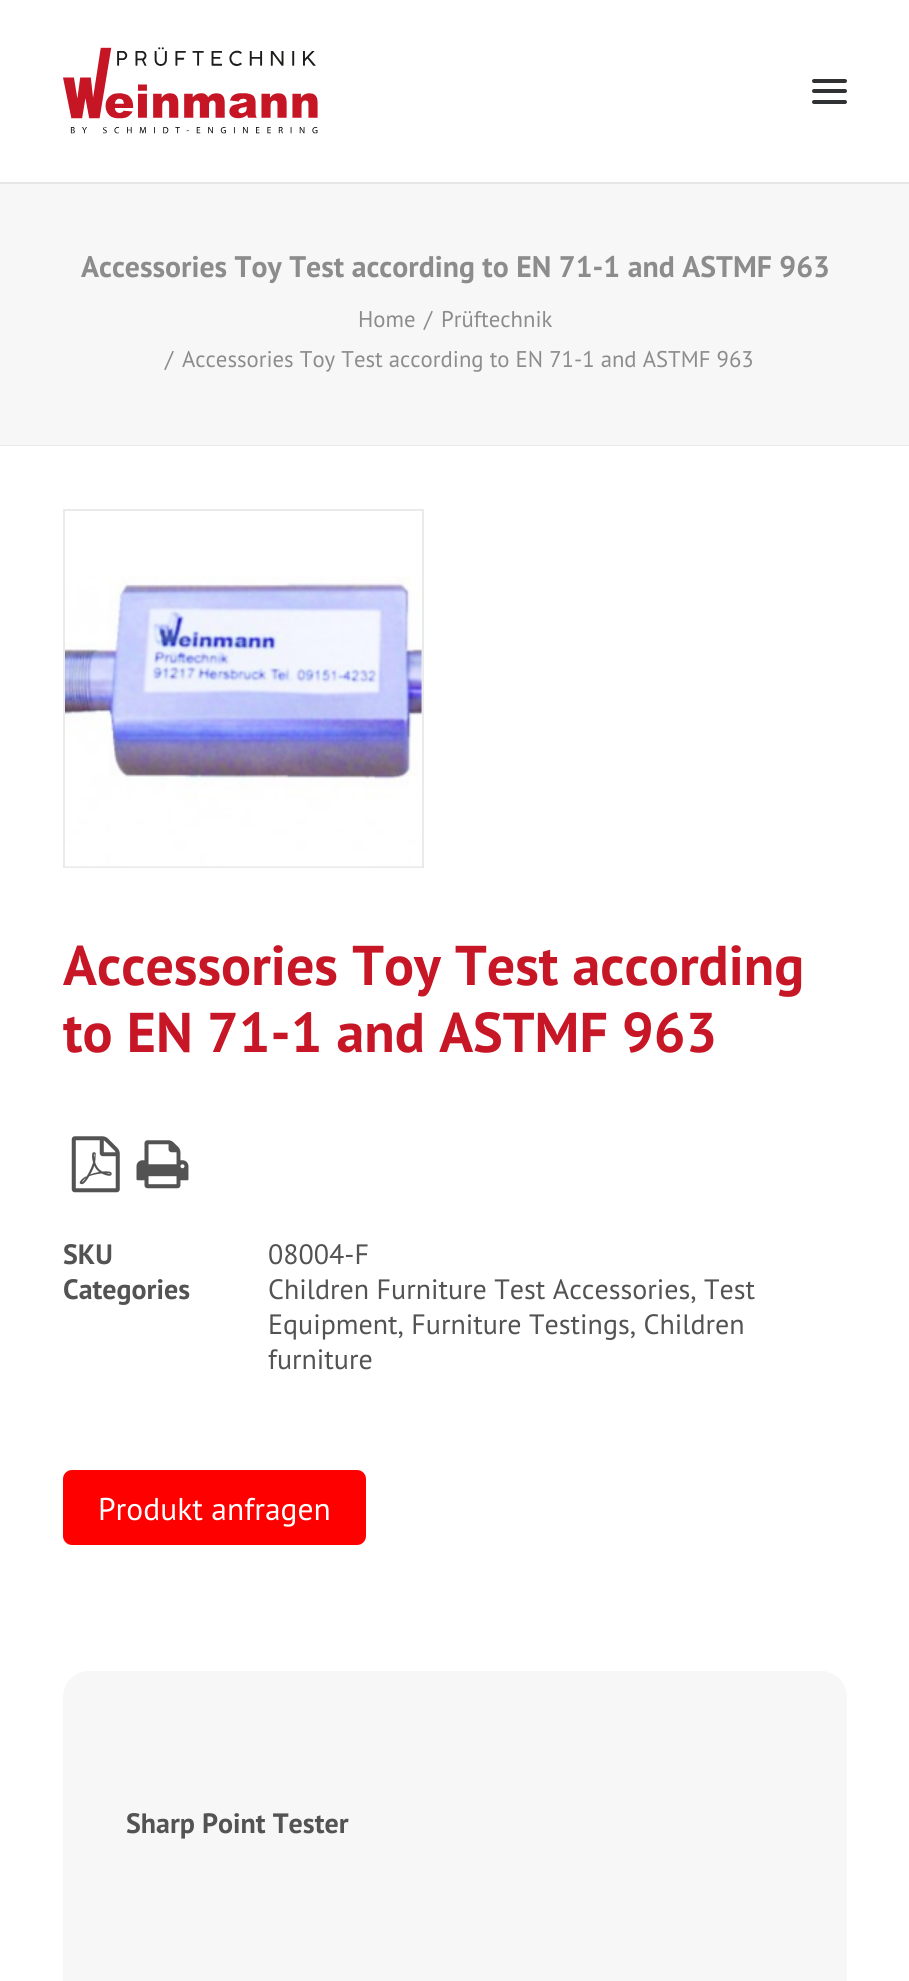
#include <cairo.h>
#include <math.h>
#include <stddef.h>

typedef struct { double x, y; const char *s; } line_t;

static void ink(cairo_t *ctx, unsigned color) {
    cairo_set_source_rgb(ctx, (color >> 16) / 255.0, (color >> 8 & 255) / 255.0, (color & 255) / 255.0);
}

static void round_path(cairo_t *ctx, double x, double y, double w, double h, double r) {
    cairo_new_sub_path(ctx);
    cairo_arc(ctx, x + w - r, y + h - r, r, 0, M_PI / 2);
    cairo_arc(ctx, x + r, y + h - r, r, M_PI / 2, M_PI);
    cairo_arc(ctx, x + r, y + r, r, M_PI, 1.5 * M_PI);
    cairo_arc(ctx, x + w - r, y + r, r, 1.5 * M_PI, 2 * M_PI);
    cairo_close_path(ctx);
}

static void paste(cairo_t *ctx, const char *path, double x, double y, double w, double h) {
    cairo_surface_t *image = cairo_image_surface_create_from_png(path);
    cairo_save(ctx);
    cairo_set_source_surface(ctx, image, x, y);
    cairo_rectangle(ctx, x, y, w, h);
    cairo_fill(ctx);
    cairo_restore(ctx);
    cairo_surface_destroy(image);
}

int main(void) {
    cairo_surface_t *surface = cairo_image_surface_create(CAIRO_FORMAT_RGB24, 909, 1981);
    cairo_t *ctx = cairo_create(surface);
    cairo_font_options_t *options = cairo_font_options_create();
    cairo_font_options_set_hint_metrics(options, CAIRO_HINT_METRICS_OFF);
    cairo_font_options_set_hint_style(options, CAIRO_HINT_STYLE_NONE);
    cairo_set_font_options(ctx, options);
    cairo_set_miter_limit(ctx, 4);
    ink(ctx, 0xF7F7F7);
    cairo_paint(ctx);
    ink(ctx, 0xFFFFFF);
    cairo_rectangle(ctx, 0, 0, 909, 182);
    cairo_fill(ctx);
    ink(ctx, 0xE7E6E6);
    cairo_rectangle(ctx, 0, 182, 909, 2);
    cairo_fill(ctx);
    paste(ctx, "media/1.png", 63, 47, 255, 87);
    ink(ctx, 0x303133);
    round_path(ctx, 812, 89, 35, 4, 2);
    cairo_fill(ctx);
    round_path(ctx, 812, 79, 35, 4, 2);
    cairo_fill(ctx);
    round_path(ctx, 812, 100, 35, 4, 2);
    cairo_fill(ctx);
    ink(ctx, 0xEAEAEA);
    cairo_rectangle(ctx, 0, 445, 909, 1);
    cairo_fill(ctx);
    cairo_select_font_face(ctx, "PT Sans", CAIRO_FONT_SLANT_NORMAL, CAIRO_FONT_WEIGHT_BOLD);
    cairo_set_font_size(ctx, 29.75);
    ink(ctx, 0x8C8C8C);
    cairo_move_to(ctx, 81, 277);
    cairo_show_text(ctx, "Accessories Toy Test according to EN 71-1 and ASTMF 963");
    cairo_select_font_face(ctx, "PT Sans", CAIRO_FONT_SLANT_NORMAL, CAIRO_FONT_WEIGHT_NORMAL);
    cairo_set_font_size(ctx, 22.75);
    {
        static const line_t items[] = {
            {358, 327, "Home"},
            {424, 327, "/"},
            {441, 327, "Prüftechnik"},
            {165, 367, "/"},
            {182, 367, "Accessories Toy Test according to EN 71-1 and ASTMF 963"},
        };
        for (size_t i = 0; i < sizeof items / sizeof *items; i++) {
            cairo_move_to(ctx, items[i].x, items[i].y);
            cairo_show_text(ctx, items[i].s);
        }
    }
    ink(ctx, 0xFFFFFF);
    cairo_rectangle(ctx, 0, 446, 909, 1535);
    cairo_fill(ctx);
    cairo_rectangle(ctx, 64, 510, 359, 357);
    ink(ctx, 0xEAEAEA);
    cairo_stroke(ctx);
    paste(ctx, "media/2.png", 65, 576, 357, 291);
    cairo_select_font_face(ctx, "PT Sans", CAIRO_FONT_SLANT_NORMAL, CAIRO_FONT_WEIGHT_BOLD);
    cairo_set_font_size(ctx, 56);
    ink(ctx, 0xC71626);
    cairo_move_to(ctx, 63, 985);
    cairo_show_text(ctx, "Accessories Toy Test according");
    cairo_move_to(ctx, 63, 1052);
    cairo_show_text(ctx, "to EN 71-1 and ASTMF 963");
    paste(ctx, "media/3.png", 71, 1136, 49, 57);
    paste(ctx, "media/4.png", 136, 1140, 53, 49);
    cairo_set_font_size(ctx, 28);
    ink(ctx, 0x535353);
    cairo_move_to(ctx, 63, 1264);
    cairo_show_text(ctx, "SKU");
    cairo_select_font_face(ctx, "PT Sans", CAIRO_FONT_SLANT_NORMAL, CAIRO_FONT_WEIGHT_NORMAL);
    cairo_move_to(ctx, 268, 1264);
    cairo_show_text(ctx, "08004-F");
    cairo_select_font_face(ctx, "PT Sans", CAIRO_FONT_SLANT_NORMAL, CAIRO_FONT_WEIGHT_BOLD);
    cairo_move_to(ctx, 63, 1299);
    cairo_show_text(ctx, "Categories");
    cairo_select_font_face(ctx, "PT Sans", CAIRO_FONT_SLANT_NORMAL, CAIRO_FONT_WEIGHT_NORMAL);
    {
        static const line_t items[] = {
            {268, 1299, "Children Furniture Test Accessories, Test"},
            {268, 1334, "Equipment, Furniture Testings, Children"},
            {268, 1369, "furniture"},
        };
        for (size_t i = 0; i < sizeof items / sizeof *items; i++) {
            cairo_move_to(ctx, items[i].x, items[i].y);
            cairo_show_text(ctx, items[i].s);
        }
    }
    ink(ctx, 0xFF0000);
    round_path(ctx, 63, 1470, 303, 75, 9);
    cairo_fill(ctx);
    cairo_set_font_size(ctx, 31.5);
    ink(ctx, 0xFFFFFF);
    cairo_move_to(ctx, 98, 1520);
    cairo_show_text(ctx, "Produkt anfragen");
    ink(ctx, 0xF7F7F7);
    round_path(ctx, 63, 1671, 784, 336, 26);
    cairo_fill(ctx);
    cairo_select_font_face(ctx, "PT Sans", CAIRO_FONT_SLANT_NORMAL, CAIRO_FONT_WEIGHT_BOLD);
    cairo_set_font_size(ctx, 28);
    ink(ctx, 0x535353);
    cairo_move_to(ctx, 126, 1833);
    cairo_show_text(ctx, "Sharp Point Tester");
    cairo_surface_write_to_png(surface, "image.png");
    cairo_font_options_destroy(options);
    cairo_destroy(ctx);
    cairo_surface_destroy(surface);
    return 0;
}
